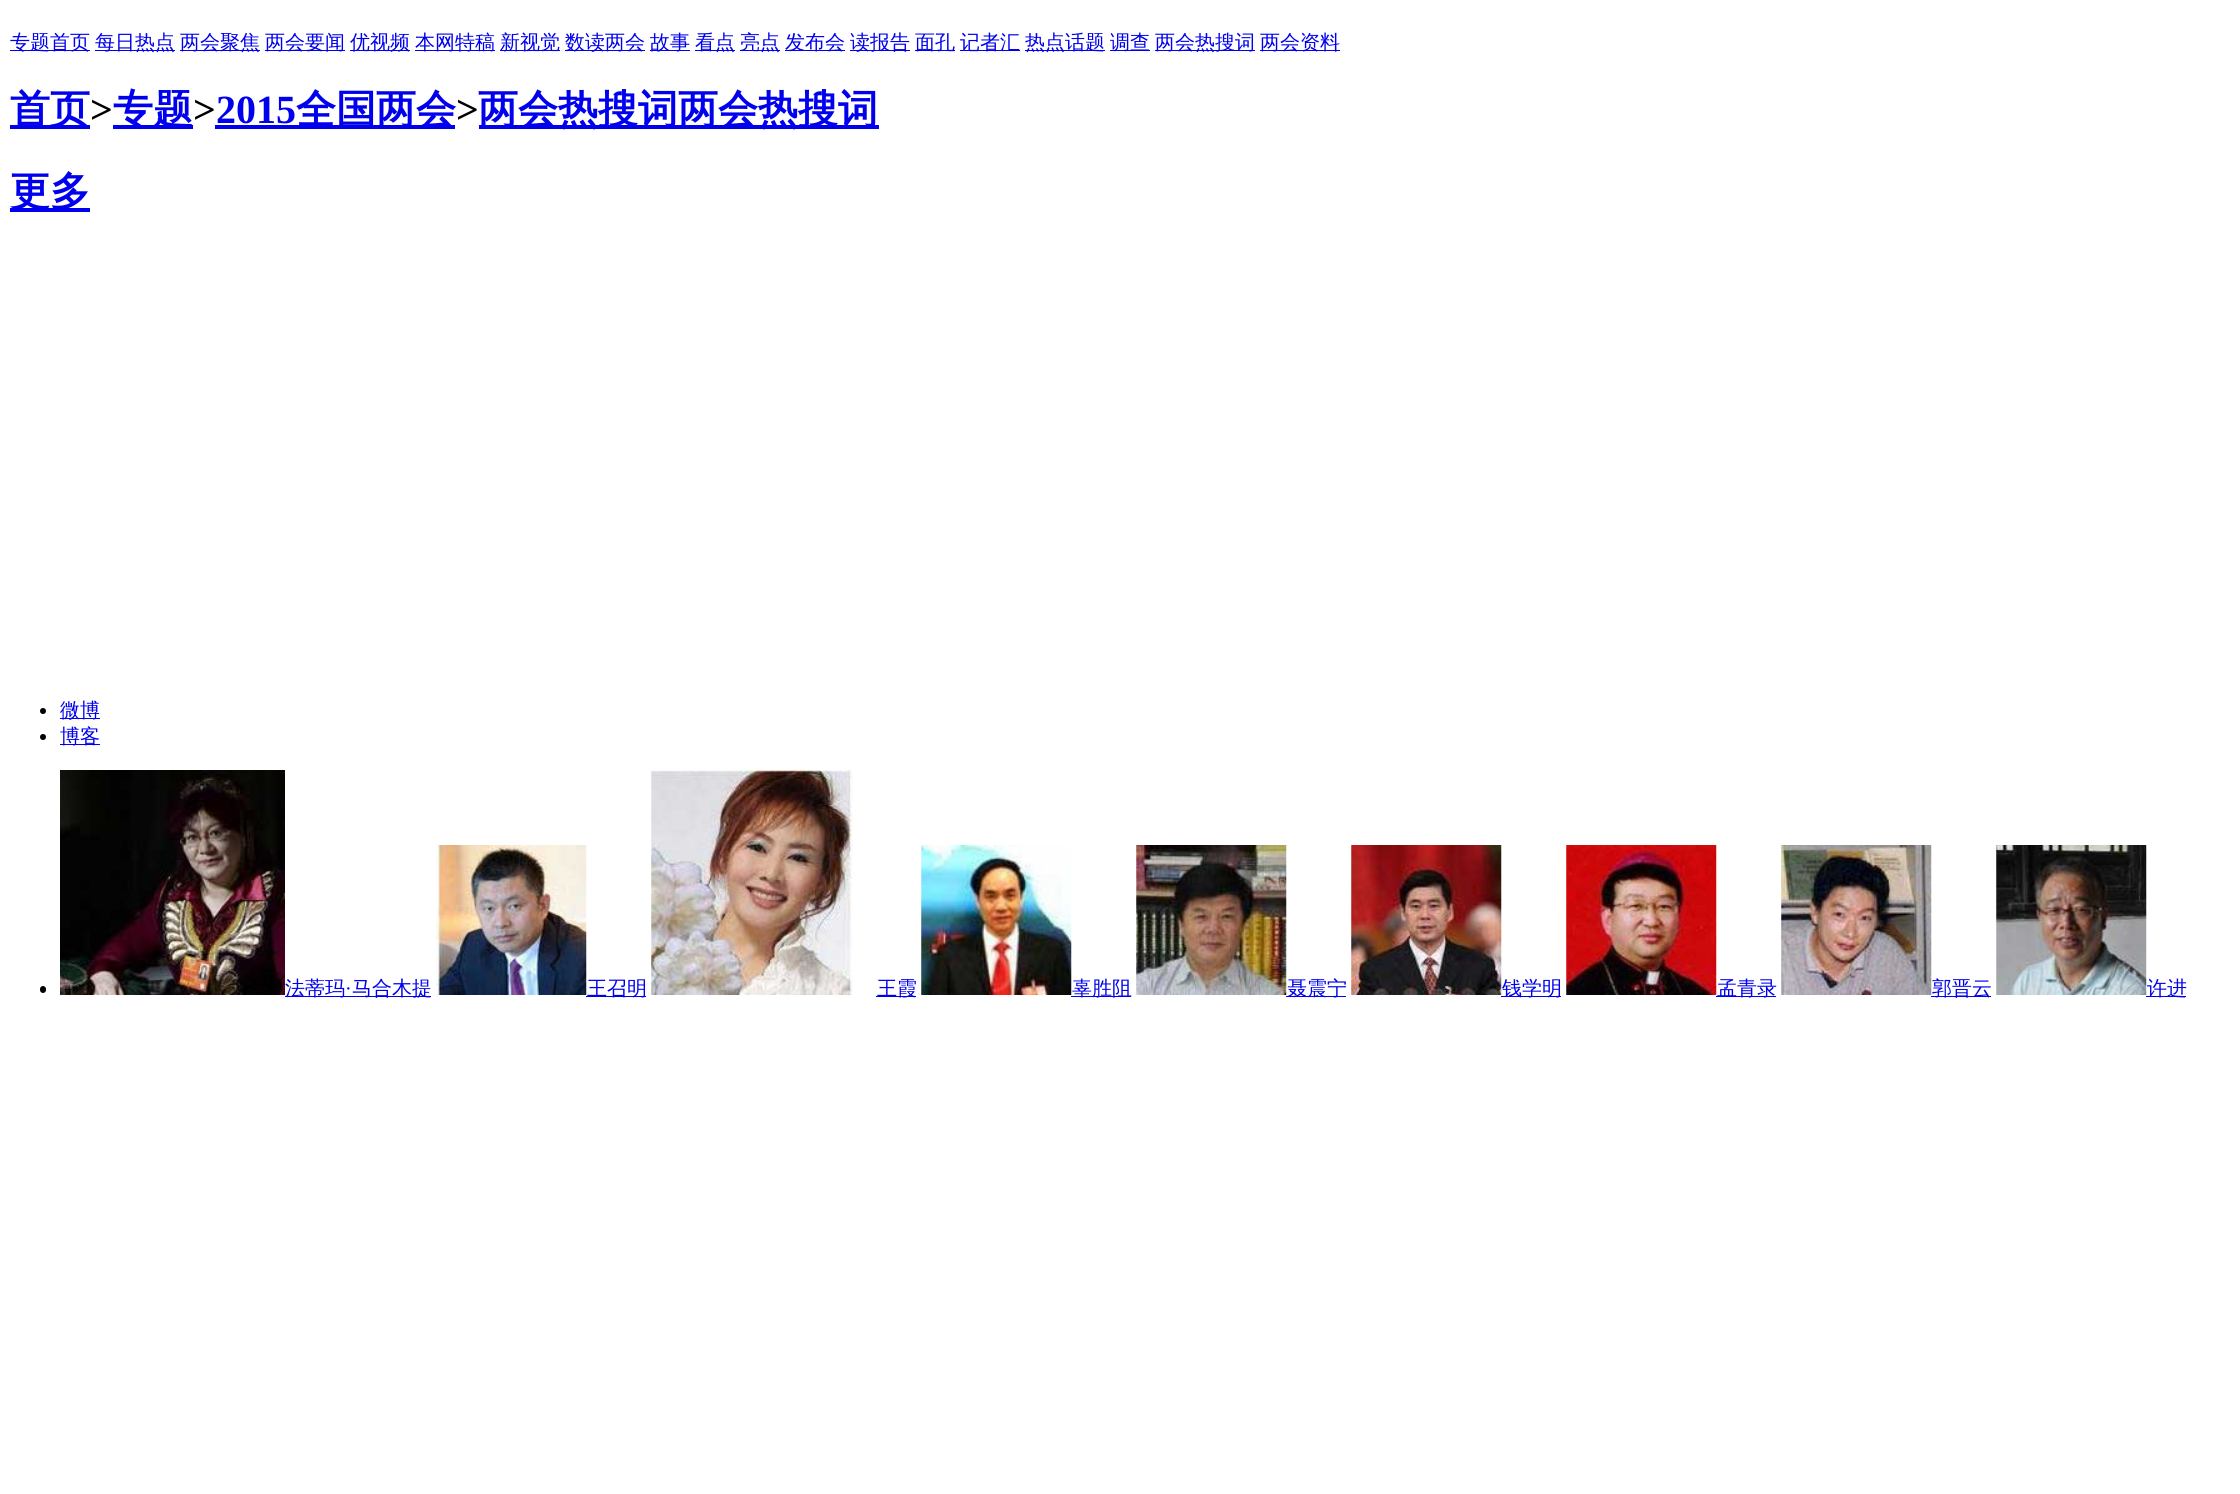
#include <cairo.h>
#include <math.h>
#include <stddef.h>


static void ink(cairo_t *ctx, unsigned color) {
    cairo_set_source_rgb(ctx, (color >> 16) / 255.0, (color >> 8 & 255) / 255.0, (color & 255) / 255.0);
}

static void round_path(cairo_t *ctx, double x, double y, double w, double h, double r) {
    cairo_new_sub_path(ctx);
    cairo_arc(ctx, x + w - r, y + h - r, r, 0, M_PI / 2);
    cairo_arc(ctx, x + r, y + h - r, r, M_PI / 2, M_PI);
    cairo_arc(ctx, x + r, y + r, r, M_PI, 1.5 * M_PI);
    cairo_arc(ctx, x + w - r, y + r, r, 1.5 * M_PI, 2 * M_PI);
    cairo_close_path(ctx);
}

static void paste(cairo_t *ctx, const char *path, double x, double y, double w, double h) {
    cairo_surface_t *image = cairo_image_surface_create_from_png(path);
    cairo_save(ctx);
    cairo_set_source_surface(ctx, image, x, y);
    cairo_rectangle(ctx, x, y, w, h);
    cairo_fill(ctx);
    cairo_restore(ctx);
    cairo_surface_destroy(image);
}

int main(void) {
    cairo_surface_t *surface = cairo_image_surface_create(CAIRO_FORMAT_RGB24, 2240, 1494);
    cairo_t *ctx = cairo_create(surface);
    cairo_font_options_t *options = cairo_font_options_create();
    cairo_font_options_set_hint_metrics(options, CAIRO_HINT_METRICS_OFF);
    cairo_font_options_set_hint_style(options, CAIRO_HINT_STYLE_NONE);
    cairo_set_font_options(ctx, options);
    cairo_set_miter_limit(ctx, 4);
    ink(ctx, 0xFFFFFF);
    cairo_paint(ctx);
    ink(ctx, 0x0000EE);
    cairo_rectangle(ctx, 10, 50, 80, 1);
    cairo_fill(ctx);
    cairo_select_font_face(ctx, "WenQuanYi Zen Hei Medium", CAIRO_FONT_SLANT_NORMAL, CAIRO_FONT_WEIGHT_NORMAL);
    cairo_set_font_size(ctx, 20);
    cairo_move_to(ctx, 10, 49);
    cairo_show_text(ctx, "专题首页");
    cairo_rectangle(ctx, 95, 50, 80, 1);
    cairo_fill(ctx);
    cairo_move_to(ctx, 95, 49);
    cairo_show_text(ctx, "每日热点");
    cairo_rectangle(ctx, 180, 50, 80, 1);
    cairo_fill(ctx);
    cairo_move_to(ctx, 180, 49);
    cairo_show_text(ctx, "两会聚焦");
    cairo_rectangle(ctx, 265, 50, 80, 1);
    cairo_fill(ctx);
    cairo_move_to(ctx, 265, 49);
    cairo_show_text(ctx, "两会要闻");
    cairo_rectangle(ctx, 350, 50, 60, 1);
    cairo_fill(ctx);
    cairo_move_to(ctx, 350, 49);
    cairo_show_text(ctx, "优视频");
    cairo_rectangle(ctx, 415, 50, 80, 1);
    cairo_fill(ctx);
    cairo_move_to(ctx, 415, 49);
    cairo_show_text(ctx, "本网特稿");
    cairo_rectangle(ctx, 500, 50, 60, 1);
    cairo_fill(ctx);
    cairo_move_to(ctx, 500, 49);
    cairo_show_text(ctx, "新视觉");
    cairo_rectangle(ctx, 565, 50, 80, 1);
    cairo_fill(ctx);
    cairo_move_to(ctx, 565, 49);
    cairo_show_text(ctx, "数读两会");
    cairo_rectangle(ctx, 650, 50, 40, 1);
    cairo_fill(ctx);
    cairo_move_to(ctx, 650, 49);
    cairo_show_text(ctx, "故事");
    cairo_rectangle(ctx, 695, 50, 40, 1);
    cairo_fill(ctx);
    cairo_move_to(ctx, 695, 49);
    cairo_show_text(ctx, "看点");
    cairo_rectangle(ctx, 740, 50, 40, 1);
    cairo_fill(ctx);
    cairo_move_to(ctx, 740, 49);
    cairo_show_text(ctx, "亮点");
    cairo_rectangle(ctx, 785, 50, 60, 1);
    cairo_fill(ctx);
    cairo_move_to(ctx, 785, 49);
    cairo_show_text(ctx, "发布会");
    cairo_rectangle(ctx, 850, 50, 60, 1);
    cairo_fill(ctx);
    cairo_move_to(ctx, 850, 49);
    cairo_show_text(ctx, "读报告");
    cairo_rectangle(ctx, 915, 50, 40, 1);
    cairo_fill(ctx);
    cairo_move_to(ctx, 915, 49);
    cairo_show_text(ctx, "面孔");
    cairo_rectangle(ctx, 960, 50, 60, 1);
    cairo_fill(ctx);
    cairo_move_to(ctx, 960, 49);
    cairo_show_text(ctx, "记者汇");
    cairo_rectangle(ctx, 1025, 50, 80, 1);
    cairo_fill(ctx);
    cairo_move_to(ctx, 1025, 49);
    cairo_show_text(ctx, "热点话题");
    cairo_rectangle(ctx, 1110, 50, 40, 1);
    cairo_fill(ctx);
    cairo_move_to(ctx, 1110, 49);
    cairo_show_text(ctx, "调查");
    cairo_rectangle(ctx, 1155, 50, 100, 1);
    cairo_fill(ctx);
    cairo_move_to(ctx, 1155, 49);
    cairo_show_text(ctx, "两会热搜词");
    cairo_rectangle(ctx, 1260, 50, 80, 1);
    cairo_fill(ctx);
    cairo_move_to(ctx, 1260, 49);
    cairo_show_text(ctx, "两会资料");
    cairo_rectangle(ctx, 10, 125, 80, 4);
    cairo_fill(ctx);
    cairo_select_font_face(ctx, "WenQuanYi Zen Hei", CAIRO_FONT_SLANT_NORMAL, CAIRO_FONT_WEIGHT_BOLD);
    cairo_set_font_size(ctx, 40);
    cairo_move_to(ctx, 10, 123);
    cairo_show_text(ctx, "首页");
    cairo_select_font_face(ctx, "Liberation Serif", CAIRO_FONT_SLANT_NORMAL, CAIRO_FONT_WEIGHT_BOLD);
    ink(ctx, 0x000000);
    cairo_move_to(ctx, 90, 123);
    cairo_show_text(ctx, ">");
    ink(ctx, 0x0000EE);
    cairo_rectangle(ctx, 113, 125, 80, 4);
    cairo_fill(ctx);
    cairo_select_font_face(ctx, "WenQuanYi Zen Hei", CAIRO_FONT_SLANT_NORMAL, CAIRO_FONT_WEIGHT_BOLD);
    cairo_move_to(ctx, 113, 123);
    cairo_show_text(ctx, "专题");
    cairo_select_font_face(ctx, "Liberation Serif", CAIRO_FONT_SLANT_NORMAL, CAIRO_FONT_WEIGHT_BOLD);
    ink(ctx, 0x000000);
    cairo_move_to(ctx, 193, 123);
    cairo_show_text(ctx, ">");
    ink(ctx, 0x0000EE);
    cairo_move_to(ctx, 216, 123);
    cairo_show_text(ctx, "2015");
    cairo_rectangle(ctx, 215, 125, 240, 4);
    cairo_fill(ctx);
    cairo_select_font_face(ctx, "WenQuanYi Zen Hei", CAIRO_FONT_SLANT_NORMAL, CAIRO_FONT_WEIGHT_BOLD);
    cairo_move_to(ctx, 296, 123);
    cairo_show_text(ctx, "全国两会");
    cairo_select_font_face(ctx, "Liberation Serif", CAIRO_FONT_SLANT_NORMAL, CAIRO_FONT_WEIGHT_BOLD);
    ink(ctx, 0x000000);
    cairo_move_to(ctx, 456, 123);
    cairo_show_text(ctx, ">");
    ink(ctx, 0x0000EE);
    cairo_rectangle(ctx, 479, 125, 400, 4);
    cairo_fill(ctx);
    cairo_select_font_face(ctx, "WenQuanYi Zen Hei", CAIRO_FONT_SLANT_NORMAL, CAIRO_FONT_WEIGHT_BOLD);
    cairo_move_to(ctx, 478, 123);
    cairo_show_text(ctx, "两会热搜词两会热搜词");
    cairo_rectangle(ctx, 10, 208, 80, 4);
    cairo_fill(ctx);
    cairo_move_to(ctx, 10, 205);
    cairo_show_text(ctx, "更多");
    ink(ctx, 0x000000);
    cairo_new_path(ctx);
    cairo_arc(ctx, 43, 711, 3, 0, 2 * M_PI);
    cairo_fill(ctx);
    ink(ctx, 0x0000EE);
    cairo_rectangle(ctx, 60, 718, 40, 1);
    cairo_fill(ctx);
    cairo_select_font_face(ctx, "WenQuanYi Zen Hei Medium", CAIRO_FONT_SLANT_NORMAL, CAIRO_FONT_WEIGHT_NORMAL);
    cairo_set_font_size(ctx, 20);
    cairo_move_to(ctx, 60, 717);
    cairo_show_text(ctx, "微博");
    ink(ctx, 0x000000);
    cairo_new_path(ctx);
    cairo_arc(ctx, 43, 737, 3, 0, 2 * M_PI);
    cairo_fill(ctx);
    ink(ctx, 0x0000EE);
    cairo_rectangle(ctx, 60, 744, 40, 1);
    cairo_fill(ctx);
    cairo_move_to(ctx, 60, 743);
    cairo_show_text(ctx, "博客");
    ink(ctx, 0x000000);
    round_path(ctx, 40, 986, 6, 7, 3);
    cairo_fill(ctx);
    paste(ctx, "media/1.png", 60, 770, 225, 225);
    ink(ctx, 0x0000EE);
    cairo_rectangle(ctx, 285, 996, 146, 1);
    cairo_fill(ctx);
    cairo_move_to(ctx, 285, 995);
    cairo_show_text(ctx, "法蒂玛");
    cairo_select_font_face(ctx, "Liberation Serif", CAIRO_FONT_SLANT_NORMAL, CAIRO_FONT_WEIGHT_NORMAL);
    cairo_move_to(ctx, 345, 995);
    cairo_show_text(ctx, "·");
    cairo_select_font_face(ctx, "WenQuanYi Zen Hei Medium", CAIRO_FONT_SLANT_NORMAL, CAIRO_FONT_WEIGHT_NORMAL);
    cairo_move_to(ctx, 352, 995);
    cairo_show_text(ctx, "马合木提");
    paste(ctx, "media/2.png", 436, 845, 151, 150);
    cairo_rectangle(ctx, 586, 996, 60, 1);
    cairo_fill(ctx);
    cairo_move_to(ctx, 587, 995);
    cairo_show_text(ctx, "王召明");
    paste(ctx, "media/3.png", 651, 770, 202, 225);
    cairo_rectangle(ctx, 876, 996, 40, 1);
    cairo_fill(ctx);
    cairo_move_to(ctx, 877, 995);
    cairo_show_text(ctx, "王霞");
    paste(ctx, "media/4.png", 921, 845, 151, 150);
    cairo_rectangle(ctx, 1071, 996, 60, 1);
    cairo_fill(ctx);
    cairo_move_to(ctx, 1072, 995);
    cairo_show_text(ctx, "辜胜阻");
    paste(ctx, "media/5.png", 1136, 845, 151, 150);
    cairo_rectangle(ctx, 1286, 996, 60, 1);
    cairo_fill(ctx);
    cairo_move_to(ctx, 1287, 995);
    cairo_show_text(ctx, "聂震宁");
    paste(ctx, "media/6.png", 1351, 845, 151, 150);
    cairo_rectangle(ctx, 1501, 996, 60, 1);
    cairo_fill(ctx);
    cairo_move_to(ctx, 1502, 995);
    cairo_show_text(ctx, "钱学明");
    paste(ctx, "media/7.png", 1566, 845, 151, 150);
    cairo_rectangle(ctx, 1716, 996, 60, 1);
    cairo_fill(ctx);
    cairo_move_to(ctx, 1717, 995);
    cairo_show_text(ctx, "孟青录");
    paste(ctx, "media/8.png", 1781, 845, 151, 150);
    cairo_rectangle(ctx, 1931, 996, 60, 1);
    cairo_fill(ctx);
    cairo_move_to(ctx, 1932, 995);
    cairo_show_text(ctx, "郭晋云");
    paste(ctx, "media/9.png", 1996, 845, 151, 150);
    cairo_rectangle(ctx, 2146, 996, 40, 1);
    cairo_fill(ctx);
    cairo_move_to(ctx, 2147, 995);
    cairo_show_text(ctx, "许进");
    cairo_surface_write_to_png(surface, "image.png");
    cairo_font_options_destroy(options);
    cairo_destroy(ctx);
    cairo_surface_destroy(surface);
    return 0;
}
